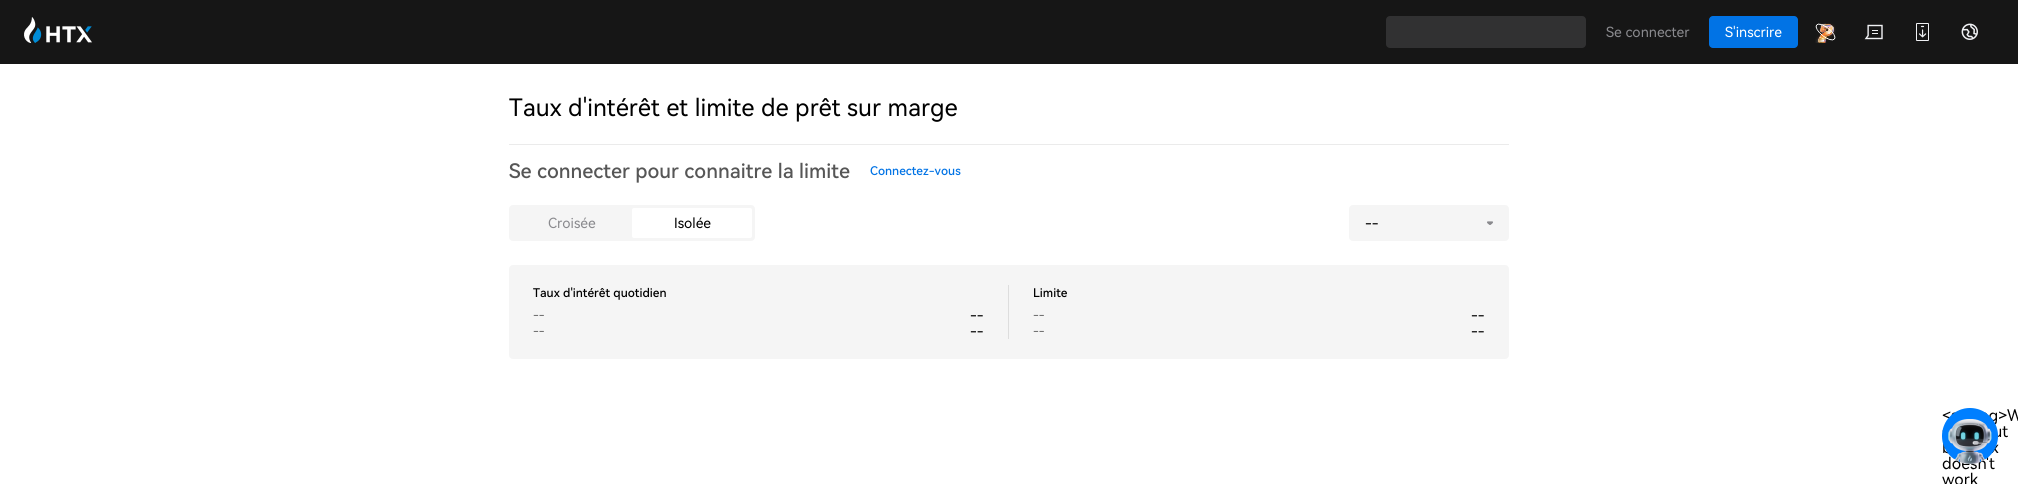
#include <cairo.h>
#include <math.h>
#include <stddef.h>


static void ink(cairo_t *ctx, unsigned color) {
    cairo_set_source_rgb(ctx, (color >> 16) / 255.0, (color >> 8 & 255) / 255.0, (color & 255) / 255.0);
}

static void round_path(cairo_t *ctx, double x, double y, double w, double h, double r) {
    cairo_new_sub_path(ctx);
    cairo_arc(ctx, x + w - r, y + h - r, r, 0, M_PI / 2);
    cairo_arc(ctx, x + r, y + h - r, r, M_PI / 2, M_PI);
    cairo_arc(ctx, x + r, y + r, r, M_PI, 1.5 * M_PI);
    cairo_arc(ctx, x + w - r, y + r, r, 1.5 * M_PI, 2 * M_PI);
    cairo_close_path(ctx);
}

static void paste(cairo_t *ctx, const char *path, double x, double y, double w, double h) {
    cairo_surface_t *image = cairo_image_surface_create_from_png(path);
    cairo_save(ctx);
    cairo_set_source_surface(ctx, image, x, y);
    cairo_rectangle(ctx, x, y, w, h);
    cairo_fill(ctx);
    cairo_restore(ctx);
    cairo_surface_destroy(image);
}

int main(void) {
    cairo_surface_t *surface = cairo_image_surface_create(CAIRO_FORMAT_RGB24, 2018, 484);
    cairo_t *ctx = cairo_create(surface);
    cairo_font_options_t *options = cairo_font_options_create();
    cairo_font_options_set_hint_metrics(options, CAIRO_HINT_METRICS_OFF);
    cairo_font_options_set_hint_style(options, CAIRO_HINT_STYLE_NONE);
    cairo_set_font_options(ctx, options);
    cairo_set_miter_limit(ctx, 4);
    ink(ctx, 0xFFFFFF);
    cairo_paint(ctx);
    ink(ctx, 0x161616);
    cairo_rectangle(ctx, 0, 0, 2018, 64);
    cairo_fill(ctx);
    paste(ctx, "media/1.png", 24, 17, 68, 26);
    ink(ctx, 0x313132);
    round_path(ctx, 1386, 16, 200, 32, 4);
    cairo_fill(ctx);
    cairo_select_font_face(ctx, "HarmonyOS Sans", CAIRO_FONT_SLANT_NORMAL, CAIRO_FONT_WEIGHT_NORMAL);
    cairo_set_font_size(ctx, 14);
    ink(ctx, 0x8A8A8E);
    cairo_move_to(ctx, 1606, 37);
    cairo_show_text(ctx, "Se connecter");
    ink(ctx, 0x0173E5);
    round_path(ctx, 1709, 16, 89, 32, 4);
    cairo_fill(ctx);
    ink(ctx, 0xFFFFFF);
    cairo_move_to(ctx, 1725, 37);
    cairo_show_text(ctx, "S'inscrire");
    paste(ctx, "media/2.png", 1815, 23, 21, 20);
    paste(ctx, "media/3.png", 1864, 24, 19, 16);
    paste(ctx, "media/4.png", 1916, 23, 13, 18);
    paste(ctx, "media/5.png", 1961, 23, 17, 17);
    ink(ctx, 0xEBEBEB);
    cairo_rectangle(ctx, 509, 144, 1000, 1);
    cairo_fill(ctx);
    cairo_set_font_size(ctx, 24);
    ink(ctx, 0x000000);
    cairo_move_to(ctx, 509, 116);
    cairo_show_text(ctx, "Taux d'intérêt et limite de prêt sur marge");
    cairo_select_font_face(ctx, "HarmonyOS Sans Medium", CAIRO_FONT_SLANT_NORMAL, CAIRO_FONT_WEIGHT_NORMAL);
    cairo_set_font_size(ctx, 20);
    ink(ctx, 0x565656);
    cairo_move_to(ctx, 509, 178);
    cairo_show_text(ctx, "Se connecter pour connaitre la limite");
    cairo_set_font_size(ctx, 12);
    ink(ctx, 0x0173E5);
    cairo_move_to(ctx, 870, 175);
    cairo_show_text(ctx, "Connectez-vous");
    ink(ctx, 0xF5F5F5);
    round_path(ctx, 509, 205, 246, 36, 4);
    cairo_fill(ctx);
    cairo_select_font_face(ctx, "HarmonyOS Sans", CAIRO_FONT_SLANT_NORMAL, CAIRO_FONT_WEIGHT_NORMAL);
    cairo_set_font_size(ctx, 14);
    ink(ctx, 0x8A8A8E);
    cairo_move_to(ctx, 548, 228);
    cairo_show_text(ctx, "Croisée");
    ink(ctx, 0xFFFFFF);
    round_path(ctx, 632, 208, 120, 30, 2);
    cairo_fill(ctx);
    ink(ctx, 0x000000);
    cairo_move_to(ctx, 674, 228);
    cairo_show_text(ctx, "Isolée");
    ink(ctx, 0xF5F5F5);
    round_path(ctx, 1349, 205, 160, 36, 4);
    cairo_fill(ctx);
    cairo_select_font_face(ctx, "HarmonyOS Sans Medium", CAIRO_FONT_SLANT_NORMAL, CAIRO_FONT_WEIGHT_NORMAL);
    ink(ctx, 0x000000);
    cairo_move_to(ctx, 1365, 228);
    cairo_show_text(ctx, "--");
    paste(ctx, "media/6.png", 1487, 221, 6, 4);
    ink(ctx, 0xF5F5F5);
    round_path(ctx, 509, 265, 1000, 94, 4);
    cairo_fill(ctx);
    ink(ctx, 0xDDDDDD);
    cairo_rectangle(ctx, 1008, 285, 1, 54);
    cairo_fill(ctx);
    cairo_set_font_size(ctx, 12);
    ink(ctx, 0x000000);
    cairo_move_to(ctx, 533, 297);
    cairo_show_text(ctx, "Taux d'intérêt quotidien");
    cairo_select_font_face(ctx, "HarmonyOS Sans", CAIRO_FONT_SLANT_NORMAL, CAIRO_FONT_WEIGHT_NORMAL);
    ink(ctx, 0x565656);
    cairo_move_to(ctx, 533, 319);
    cairo_show_text(ctx, "--");
    cairo_select_font_face(ctx, "HarmonyOS Sans Medium", CAIRO_FONT_SLANT_NORMAL, CAIRO_FONT_WEIGHT_NORMAL);
    cairo_set_font_size(ctx, 14);
    ink(ctx, 0x000000);
    cairo_move_to(ctx, 970, 320);
    cairo_show_text(ctx, "--");
    cairo_select_font_face(ctx, "HarmonyOS Sans", CAIRO_FONT_SLANT_NORMAL, CAIRO_FONT_WEIGHT_NORMAL);
    cairo_set_font_size(ctx, 12);
    ink(ctx, 0x565656);
    cairo_move_to(ctx, 533, 335);
    cairo_show_text(ctx, "--");
    cairo_select_font_face(ctx, "HarmonyOS Sans Medium", CAIRO_FONT_SLANT_NORMAL, CAIRO_FONT_WEIGHT_NORMAL);
    cairo_set_font_size(ctx, 14);
    ink(ctx, 0x000000);
    cairo_move_to(ctx, 970, 336);
    cairo_show_text(ctx, "--");
    cairo_set_font_size(ctx, 12);
    cairo_move_to(ctx, 1033, 297);
    cairo_show_text(ctx, "Limite");
    cairo_select_font_face(ctx, "HarmonyOS Sans", CAIRO_FONT_SLANT_NORMAL, CAIRO_FONT_WEIGHT_NORMAL);
    ink(ctx, 0x565656);
    cairo_move_to(ctx, 1033, 319);
    cairo_show_text(ctx, "--");
    cairo_select_font_face(ctx, "HarmonyOS Sans Medium", CAIRO_FONT_SLANT_NORMAL, CAIRO_FONT_WEIGHT_NORMAL);
    cairo_set_font_size(ctx, 14);
    ink(ctx, 0x000000);
    cairo_move_to(ctx, 1471, 320);
    cairo_show_text(ctx, "--");
    cairo_select_font_face(ctx, "HarmonyOS Sans", CAIRO_FONT_SLANT_NORMAL, CAIRO_FONT_WEIGHT_NORMAL);
    cairo_set_font_size(ctx, 12);
    ink(ctx, 0x565656);
    cairo_move_to(ctx, 1033, 335);
    cairo_show_text(ctx, "--");
    cairo_select_font_face(ctx, "HarmonyOS Sans Medium", CAIRO_FONT_SLANT_NORMAL, CAIRO_FONT_WEIGHT_NORMAL);
    cairo_set_font_size(ctx, 14);
    ink(ctx, 0x000000);
    cairo_move_to(ctx, 1471, 336);
    cairo_show_text(ctx, "--");
    paste(ctx, "media/7.png", 1942, 408, 76, 76);
    cairo_surface_write_to_png(surface, "image.png");
    cairo_font_options_destroy(options);
    cairo_destroy(ctx);
    cairo_surface_destroy(surface);
    return 0;
}
